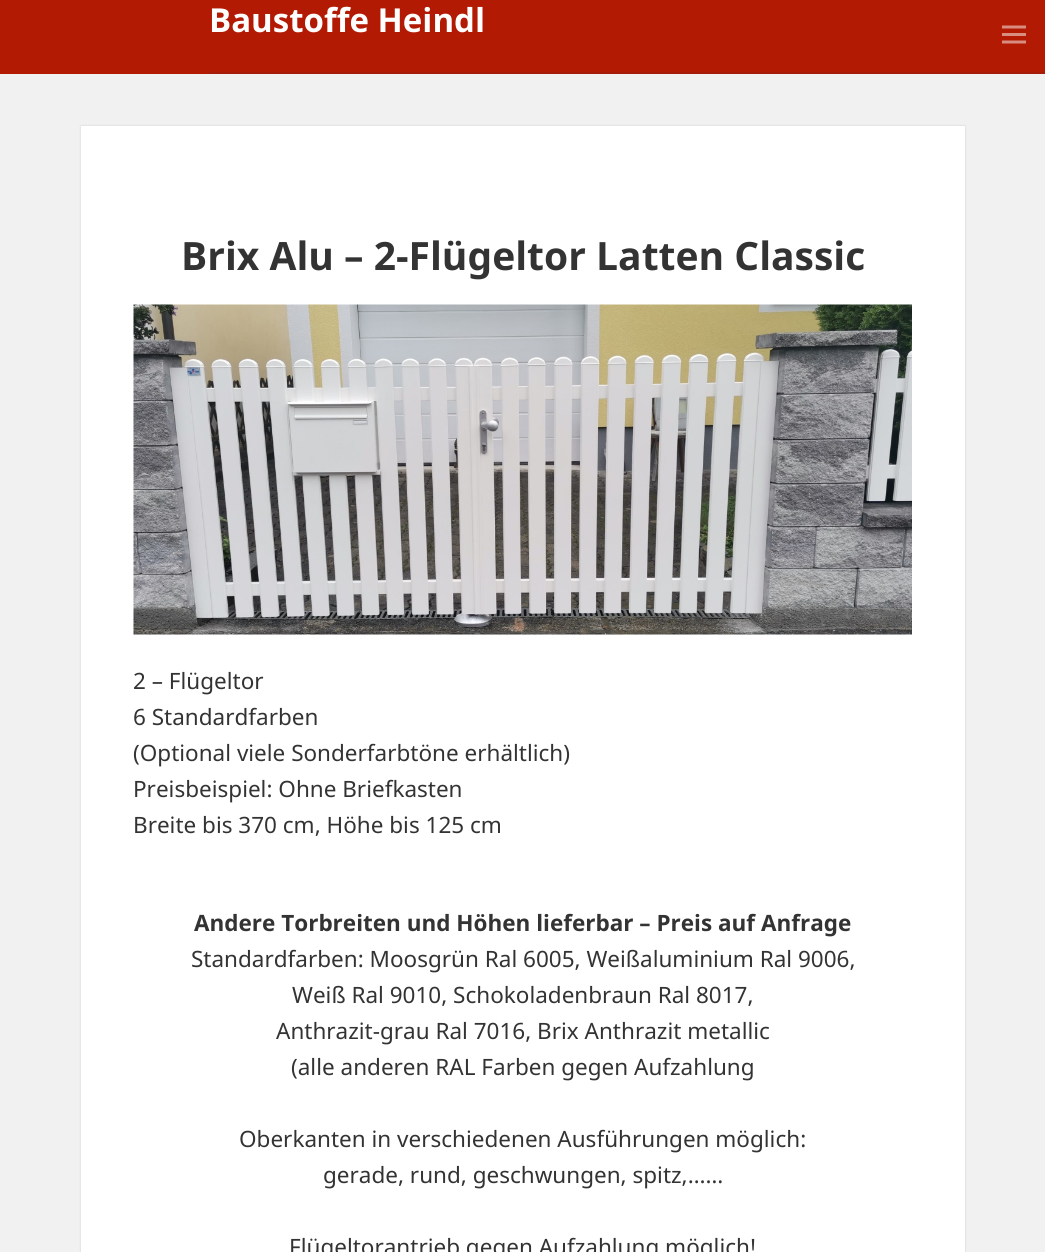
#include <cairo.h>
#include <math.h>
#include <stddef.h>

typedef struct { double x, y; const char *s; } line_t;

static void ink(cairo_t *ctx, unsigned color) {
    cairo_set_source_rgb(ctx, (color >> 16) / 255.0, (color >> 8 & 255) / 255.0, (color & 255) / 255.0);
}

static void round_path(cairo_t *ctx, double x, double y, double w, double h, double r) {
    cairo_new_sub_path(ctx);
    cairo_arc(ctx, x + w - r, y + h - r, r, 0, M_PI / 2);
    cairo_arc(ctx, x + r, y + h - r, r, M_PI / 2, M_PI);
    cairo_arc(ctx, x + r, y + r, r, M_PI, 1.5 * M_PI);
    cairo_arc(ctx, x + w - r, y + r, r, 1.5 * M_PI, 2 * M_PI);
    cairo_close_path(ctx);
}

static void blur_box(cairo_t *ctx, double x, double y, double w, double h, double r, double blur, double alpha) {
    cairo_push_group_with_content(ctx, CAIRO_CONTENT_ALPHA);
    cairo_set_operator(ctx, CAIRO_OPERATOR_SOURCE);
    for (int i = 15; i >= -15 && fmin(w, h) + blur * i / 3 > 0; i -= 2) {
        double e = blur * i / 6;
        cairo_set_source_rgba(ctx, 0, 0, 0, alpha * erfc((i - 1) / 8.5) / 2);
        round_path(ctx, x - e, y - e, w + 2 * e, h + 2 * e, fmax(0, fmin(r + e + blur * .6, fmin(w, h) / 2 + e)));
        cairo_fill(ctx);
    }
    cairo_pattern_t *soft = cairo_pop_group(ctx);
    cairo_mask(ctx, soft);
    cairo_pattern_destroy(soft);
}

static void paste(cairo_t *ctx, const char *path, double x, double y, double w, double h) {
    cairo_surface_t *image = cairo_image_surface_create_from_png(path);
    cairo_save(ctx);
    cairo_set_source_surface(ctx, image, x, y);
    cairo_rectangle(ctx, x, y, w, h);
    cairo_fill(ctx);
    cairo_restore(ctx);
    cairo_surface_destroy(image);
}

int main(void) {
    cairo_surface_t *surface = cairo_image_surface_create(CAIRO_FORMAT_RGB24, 1045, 1252);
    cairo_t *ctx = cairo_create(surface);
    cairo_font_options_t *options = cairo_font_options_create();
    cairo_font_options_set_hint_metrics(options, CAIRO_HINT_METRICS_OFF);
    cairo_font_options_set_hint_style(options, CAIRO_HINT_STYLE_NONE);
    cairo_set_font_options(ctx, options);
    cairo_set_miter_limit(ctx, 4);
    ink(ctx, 0xF1F1F1);
    cairo_paint(ctx);
    ink(ctx, 0xB21A03);
    cairo_rectangle(ctx, 0, 0, 1045, 74);
    cairo_fill(ctx);
    ink(ctx, 0xA51D08);
    cairo_rectangle(ctx, 209, 72, 836, 2);
    cairo_fill(ctx);
    cairo_select_font_face(ctx, "Noto Sans", CAIRO_FONT_SLANT_NORMAL, CAIRO_FONT_WEIGHT_BOLD);
    cairo_set_font_size(ctx, 33);
    ink(ctx, 0xFFFFFF);
    cairo_move_to(ctx, 209, 32);
    cairo_show_text(ctx, "Baustoffe Heindl");
    paste(ctx, "media/1.png", 1002, 25, 24, 19);
    ink(ctx, 0x000000);
    blur_box(ctx, 81, 126, 884, 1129, 0, 1, 0.15);
    ink(ctx, 0xFFFFFF);
    cairo_rectangle(ctx, 81, 126, 884, 1126);
    cairo_fill(ctx);
    cairo_set_font_size(ctx, 39);
    ink(ctx, 0x333333);
    cairo_move_to(ctx, 181, 270);
    cairo_show_text(ctx, "Brix Alu – 2-Flügeltor Latten Classic");
    paste(ctx, "media/2.png", 133, 304, 779, 331);
    cairo_select_font_face(ctx, "Noto Sans", CAIRO_FONT_SLANT_NORMAL, CAIRO_FONT_WEIGHT_NORMAL);
    cairo_set_font_size(ctx, 22.5);
    {
        static const line_t items[] = {
            {133, 689, "2 – Flügeltor"},
            {133, 725, "6 Standardfarben"},
            {133, 761, "(Optional viele Sonderfarbtöne erhältlich)"},
            {133, 797, "Preisbeispiel: Ohne Briefkasten"},
            {133, 833, "Breite bis 370 cm, Höhe bis 125 cm"},
        };
        for (size_t i = 0; i < sizeof items / sizeof *items; i++) {
            cairo_move_to(ctx, items[i].x, items[i].y);
            cairo_show_text(ctx, items[i].s);
        }
    }
    cairo_select_font_face(ctx, "Noto Sans", CAIRO_FONT_SLANT_NORMAL, CAIRO_FONT_WEIGHT_BOLD);
    cairo_move_to(ctx, 194, 931);
    cairo_show_text(ctx, "Andere Torbreiten und Höhen lieferbar – Preis auf Anfrage");
    cairo_select_font_face(ctx, "Noto Sans", CAIRO_FONT_SLANT_NORMAL, CAIRO_FONT_WEIGHT_NORMAL);
    {
        static const line_t items[] = {
            {191, 967, "Standardfarben: Moosgrün Ral 6005, Weißaluminium Ral 9006,"},
            {292, 1003, "Weiß Ral 9010, Schokoladenbraun Ral 8017,"},
            {276, 1039, "Anthrazit-grau Ral 7016, Brix Anthrazit metallic"},
            {291, 1075, "(alle anderen RAL Farben gegen Aufzahlung"},
            {239, 1147, "Oberkanten in verschiedenen Ausführungen möglich:"},
            {323, 1183, "gerade, rund, geschwungen, spitz,……"},
            {289, 1255, "Flügeltorantrieb gegen Aufzahlung möglich!"},
        };
        for (size_t i = 0; i < sizeof items / sizeof *items; i++) {
            cairo_move_to(ctx, items[i].x, items[i].y);
            cairo_show_text(ctx, items[i].s);
        }
    }
    cairo_surface_write_to_png(surface, "image.png");
    cairo_font_options_destroy(options);
    cairo_destroy(ctx);
    cairo_surface_destroy(surface);
    return 0;
}
